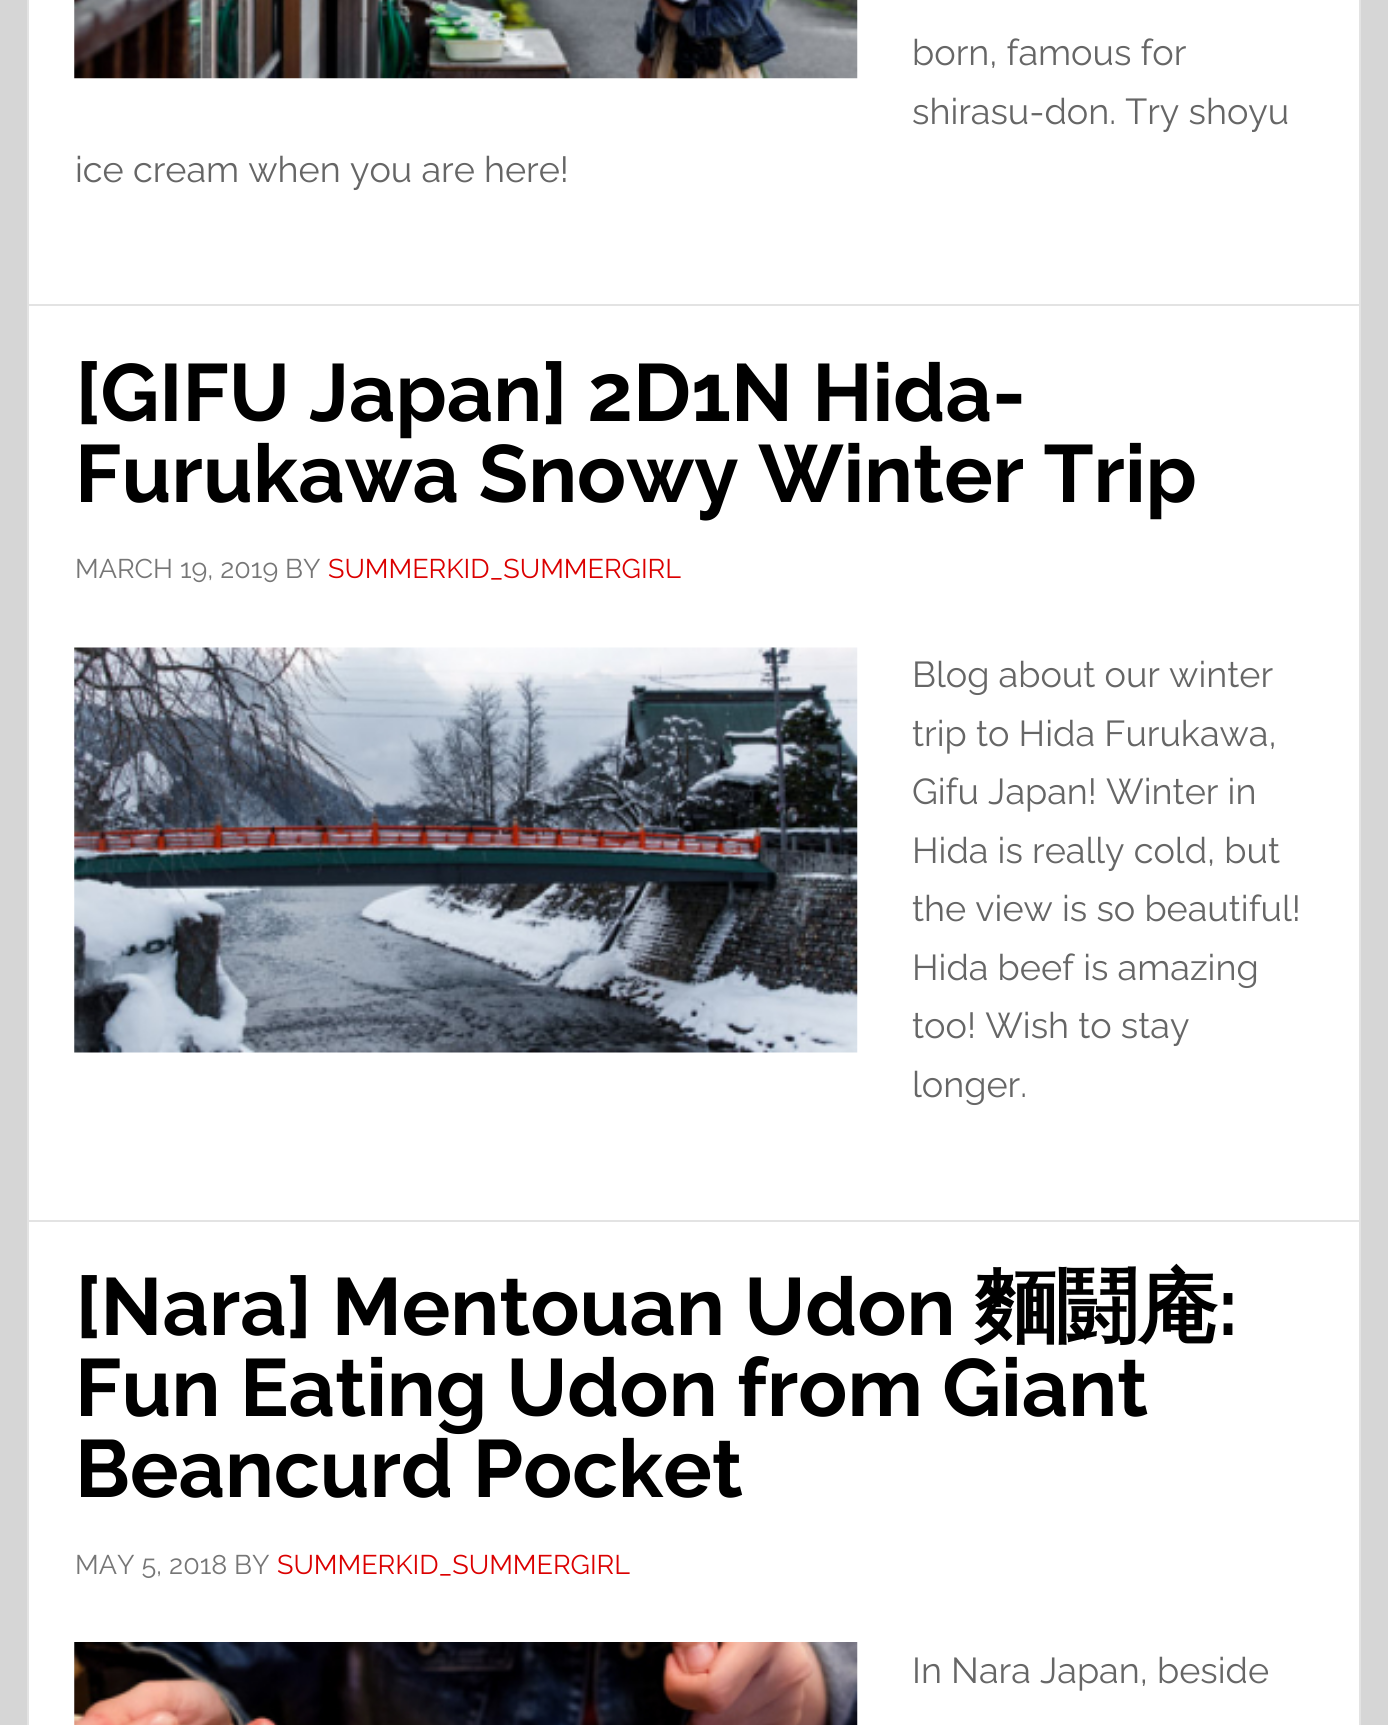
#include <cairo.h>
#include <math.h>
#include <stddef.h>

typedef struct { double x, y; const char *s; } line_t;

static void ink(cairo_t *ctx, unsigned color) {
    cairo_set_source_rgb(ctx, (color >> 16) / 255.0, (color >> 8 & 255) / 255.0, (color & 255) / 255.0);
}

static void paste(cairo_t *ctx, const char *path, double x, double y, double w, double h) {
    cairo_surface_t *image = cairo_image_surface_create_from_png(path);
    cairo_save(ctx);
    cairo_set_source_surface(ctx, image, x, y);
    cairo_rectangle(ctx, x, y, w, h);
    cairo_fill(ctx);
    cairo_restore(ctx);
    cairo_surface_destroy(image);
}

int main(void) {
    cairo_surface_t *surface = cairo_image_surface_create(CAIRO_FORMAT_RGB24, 1388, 1725);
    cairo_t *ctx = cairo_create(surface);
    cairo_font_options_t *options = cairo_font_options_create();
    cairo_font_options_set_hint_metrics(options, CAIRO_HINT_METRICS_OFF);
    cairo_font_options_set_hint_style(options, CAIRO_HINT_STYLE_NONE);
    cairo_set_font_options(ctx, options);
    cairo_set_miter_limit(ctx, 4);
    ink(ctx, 0xD6D6D6);
    cairo_paint(ctx);
    ink(ctx, 0xFFFFFF);
    cairo_rectangle(ctx, 28, -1, 1332, 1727);
    cairo_fill_preserve(ctx);
    ink(ctx, 0xE3E3E3);
    cairo_stroke(ctx);
    cairo_rectangle(ctx, 29, 304, 1330, 2);
    cairo_fill(ctx);
    paste(ctx, "media/1.png", 74, 0, 784, 79);
    cairo_select_font_face(ctx, "Raleway", CAIRO_FONT_SLANT_NORMAL, CAIRO_FONT_WEIGHT_NORMAL);
    cairo_set_font_size(ctx, 36);
    ink(ctx, 0x666666);
    {
        static const line_t items[] = {
            {912, 65, "born, famous for"},
            {912, 124, "shirasu-don. Try shoyu"},
            {75, 182, "ice cream when you are here!"},
        };
        for (size_t i = 0; i < sizeof items / sizeof *items; i++) {
            cairo_move_to(ctx, items[i].x, items[i].y);
            cairo_show_text(ctx, items[i].s);
        }
    }
    ink(ctx, 0xE3E3E3);
    cairo_rectangle(ctx, 29, 1220, 1330, 2);
    cairo_fill(ctx);
    cairo_select_font_face(ctx, "Raleway", CAIRO_FONT_SLANT_NORMAL, CAIRO_FONT_WEIGHT_BOLD);
    cairo_set_font_size(ctx, 81);
    ink(ctx, 0x000000);
    cairo_move_to(ctx, 75, 421);
    cairo_show_text(ctx, "[GIFU Japan] 2D1N Hida-");
    cairo_move_to(ctx, 75, 502);
    cairo_show_text(ctx, "Furukawa Snowy Winter Trip");
    cairo_select_font_face(ctx, "Raleway", CAIRO_FONT_SLANT_NORMAL, CAIRO_FONT_WEIGHT_NORMAL);
    cairo_set_font_size(ctx, 27);
    ink(ctx, 0x767676);
    cairo_move_to(ctx, 75, 578);
    cairo_show_text(ctx, "MARCH 19, 2019 BY");
    ink(ctx, 0xDB0000);
    cairo_move_to(ctx, 328, 578);
    cairo_show_text(ctx, "SUMMERKID_SUMMERGIRL");
    paste(ctx, "media/2.png", 74, 647, 784, 406);
    cairo_set_font_size(ctx, 36);
    ink(ctx, 0x666666);
    {
        static const line_t items[] = {
            {912, 687, "Blog about our winter"},
            {912, 746, "trip to Hida Furukawa,"},
            {912, 804, "Gifu Japan! Winter in"},
            {912, 863, "Hida is really cold, but"},
            {912, 921, "the view is so beautiful!"},
            {912, 980, "Hida beef is amazing"},
            {912, 1038, "too! Wish to stay"},
            {912, 1097, "longer."},
        };
        for (size_t i = 0; i < sizeof items / sizeof *items; i++) {
            cairo_move_to(ctx, items[i].x, items[i].y);
            cairo_show_text(ctx, items[i].s);
        }
    }
    cairo_select_font_face(ctx, "Raleway", CAIRO_FONT_SLANT_NORMAL, CAIRO_FONT_WEIGHT_BOLD);
    cairo_set_font_size(ctx, 81);
    ink(ctx, 0x000000);
    cairo_move_to(ctx, 75, 1335);
    cairo_show_text(ctx, "[Nara] Mentouan Udon");
    cairo_select_font_face(ctx, "WenQuanYi Zen Hei", CAIRO_FONT_SLANT_NORMAL, CAIRO_FONT_WEIGHT_BOLD);
    cairo_move_to(ctx, 975, 1335);
    cairo_show_text(ctx, "麵鬪庵");
    cairo_select_font_face(ctx, "Raleway", CAIRO_FONT_SLANT_NORMAL, CAIRO_FONT_WEIGHT_BOLD);
    {
        static const line_t items[] = {
            {1218, 1335, ":"},
            {75, 1416, "Fun Eating Udon from Giant"},
            {75, 1497, "Beancurd Pocket"},
        };
        for (size_t i = 0; i < sizeof items / sizeof *items; i++) {
            cairo_move_to(ctx, items[i].x, items[i].y);
            cairo_show_text(ctx, items[i].s);
        }
    }
    cairo_select_font_face(ctx, "Raleway", CAIRO_FONT_SLANT_NORMAL, CAIRO_FONT_WEIGHT_NORMAL);
    cairo_set_font_size(ctx, 27);
    ink(ctx, 0x767676);
    cairo_move_to(ctx, 75, 1574);
    cairo_show_text(ctx, "MAY 5, 2018 BY");
    ink(ctx, 0xDB0000);
    cairo_move_to(ctx, 277, 1574);
    cairo_show_text(ctx, "SUMMERKID_SUMMERGIRL");
    paste(ctx, "media/3.png", 74, 1642, 784, 83);
    cairo_set_font_size(ctx, 36);
    ink(ctx, 0x666666);
    cairo_move_to(ctx, 912, 1683);
    cairo_show_text(ctx, "In Nara Japan, beside");
    cairo_surface_write_to_png(surface, "image.png");
    cairo_font_options_destroy(options);
    cairo_destroy(ctx);
    cairo_surface_destroy(surface);
    return 0;
}
